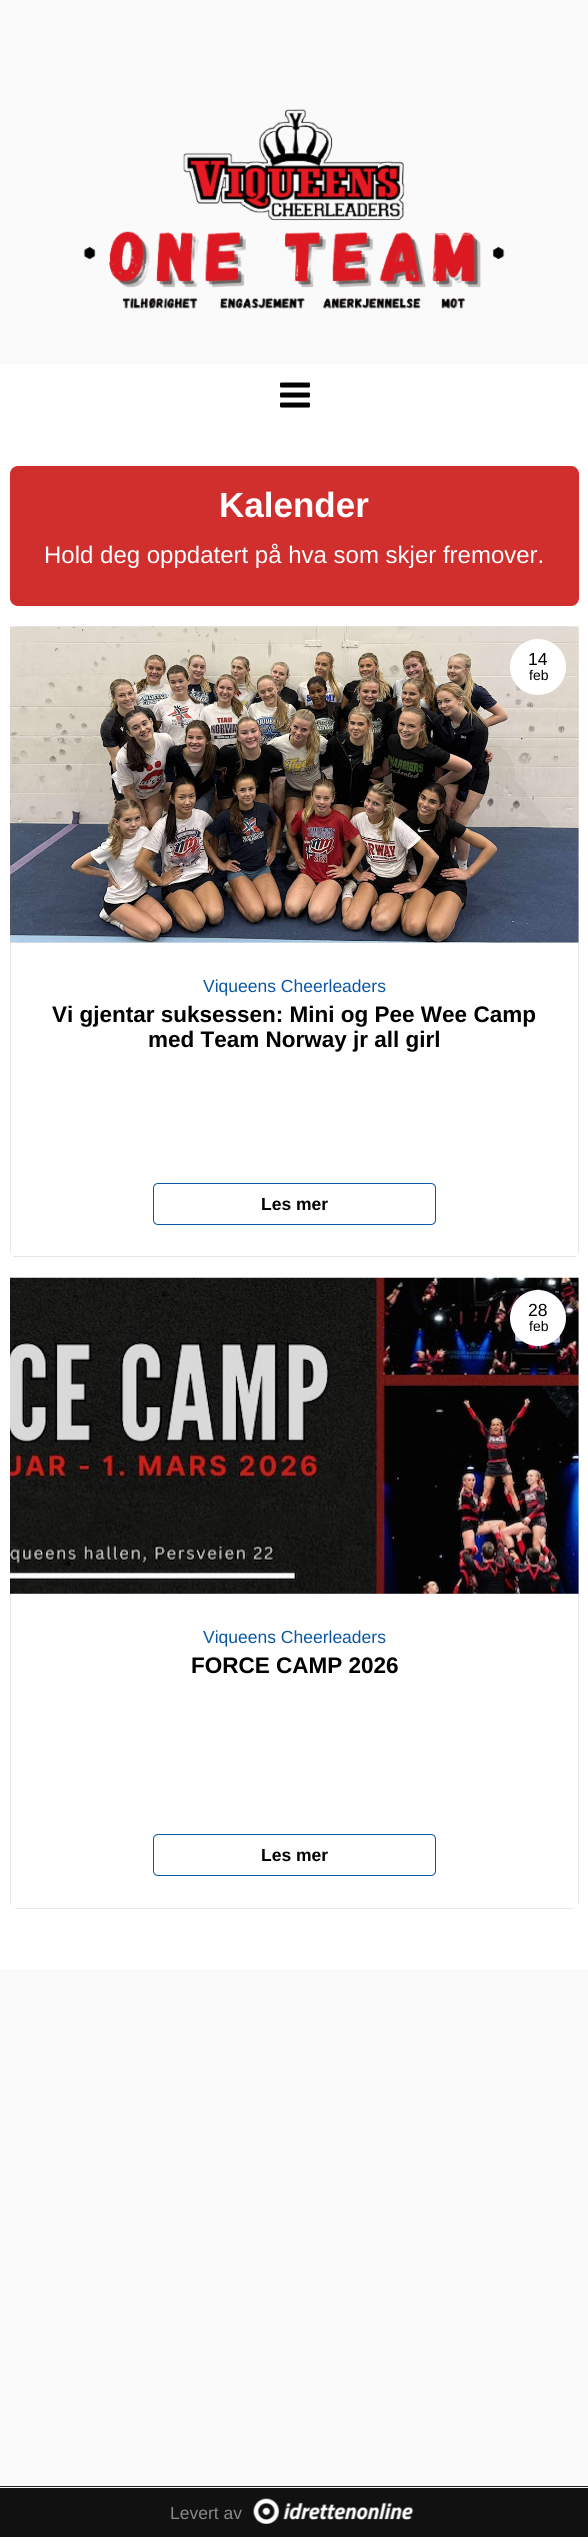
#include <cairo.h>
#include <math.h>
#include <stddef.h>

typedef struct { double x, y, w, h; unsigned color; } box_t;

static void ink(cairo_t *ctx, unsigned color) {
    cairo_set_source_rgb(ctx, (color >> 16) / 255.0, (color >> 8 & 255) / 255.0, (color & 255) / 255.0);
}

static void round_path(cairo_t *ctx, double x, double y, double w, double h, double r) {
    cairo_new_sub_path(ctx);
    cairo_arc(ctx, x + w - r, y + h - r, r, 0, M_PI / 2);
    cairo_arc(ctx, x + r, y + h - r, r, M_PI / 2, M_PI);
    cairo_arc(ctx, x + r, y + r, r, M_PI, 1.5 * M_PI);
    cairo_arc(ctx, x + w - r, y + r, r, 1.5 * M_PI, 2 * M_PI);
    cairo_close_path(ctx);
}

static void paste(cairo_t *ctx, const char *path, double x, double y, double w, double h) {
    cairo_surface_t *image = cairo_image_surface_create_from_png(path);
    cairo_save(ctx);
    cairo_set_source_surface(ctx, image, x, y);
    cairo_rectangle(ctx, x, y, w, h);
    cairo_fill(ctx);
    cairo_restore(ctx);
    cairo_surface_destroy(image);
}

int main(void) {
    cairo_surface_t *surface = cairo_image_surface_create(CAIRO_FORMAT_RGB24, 588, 2537);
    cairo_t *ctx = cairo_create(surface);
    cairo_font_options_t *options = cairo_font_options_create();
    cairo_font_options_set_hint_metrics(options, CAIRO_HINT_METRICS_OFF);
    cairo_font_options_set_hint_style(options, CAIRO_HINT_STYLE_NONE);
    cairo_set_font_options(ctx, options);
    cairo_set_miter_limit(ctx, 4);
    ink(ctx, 0xFAFAFA);
    cairo_paint(ctx);
    paste(ctx, "media/1.png", 83, 109, 422, 200);
    ink(ctx, 0xFFFFFF);
    cairo_rectangle(ctx, 0, 364, 588, 1605);
    cairo_fill(ctx);
    paste(ctx, "media/2.png", 280, 382, 30, 26);
    ink(ctx, 0xD12E2E);
    round_path(ctx, 10, 466, 569, 140, 8);
    cairo_fill(ctx);
    cairo_select_font_face(ctx, "Liberation Sans", CAIRO_FONT_SLANT_NORMAL, CAIRO_FONT_WEIGHT_BOLD);
    cairo_set_font_size(ctx, 35);
    ink(ctx, 0xFFFFFF);
    cairo_move_to(ctx, 219, 517);
    cairo_show_text(ctx, "Kalender");
    cairo_select_font_face(ctx, "Liberation Sans", CAIRO_FONT_SLANT_NORMAL, CAIRO_FONT_WEIGHT_NORMAL);
    cairo_set_font_size(ctx, 24);
    cairo_move_to(ctx, 44, 563);
    cairo_show_text(ctx, "Hold deg oppdatert på hva som skjer fremover.");
    ink(ctx, 0xE7E7E7);
    round_path(ctx, 10, 626, 569, 632, 8);
    cairo_fill(ctx);
    paste(ctx, "media/3.png", 10, 626, 569, 317);
    ink(ctx, 0xFFFFFF);
    cairo_arc(ctx, 538, 667, 28, 0, 2 * M_PI);
    cairo_fill(ctx);
    cairo_set_font_size(ctx, 17.5);
    ink(ctx, 0x000000);
    cairo_move_to(ctx, 528, 665);
    cairo_show_text(ctx, "14");
    cairo_set_font_size(ctx, 14);
    cairo_move_to(ctx, 529, 680);
    cairo_show_text(ctx, "feb");
    ink(ctx, 0xFFFFFF);
    cairo_new_path(ctx);
    cairo_move_to(ctx, 10, 943);
    cairo_line_to(ctx, 579, 943);
    cairo_line_to(ctx, 579, 1250);
    cairo_curve_to(ctx, 579, 1254.5, 575.5, 1258, 571, 1258);
    cairo_line_to(ctx, 18, 1258);
    cairo_curve_to(ctx, 13.5, 1258, 10, 1254.5, 10, 1250);
    cairo_close_path(ctx);
    cairo_fill(ctx);
    cairo_save(ctx);
    cairo_new_path(ctx);
    cairo_move_to(ctx, 10, 626);
    cairo_line_to(ctx, 579, 626);
    cairo_line_to(ctx, 579, 1250);
    cairo_curve_to(ctx, 579, 1254.5, 575.5, 1258, 571, 1258);
    cairo_line_to(ctx, 18, 1258);
    cairo_curve_to(ctx, 13.5, 1258, 10, 1254.5, 10, 1250);
    cairo_close_path(ctx);
    cairo_clip(ctx);
    {
        static const box_t items[] = {
            {578, 943, 1, 315, 0xE7E7E7},
            {10, 1256, 569, 1, 0xE7E7E7},
            {10, 943, 1, 315, 0xE7E7E7},
        };
        for (size_t i = 0; i < sizeof items / sizeof *items; i++) {
            ink(ctx, items[i].color);
            cairo_rectangle(ctx, items[i].x, items[i].y, items[i].w, items[i].h);
            cairo_fill(ctx);
        }
    }
    cairo_restore(ctx);
    cairo_set_font_size(ctx, 17.5);
    ink(ctx, 0x0956A4);
    cairo_move_to(ctx, 203, 992);
    cairo_show_text(ctx, "Viqueens Cheerleaders");
    cairo_select_font_face(ctx, "Liberation Sans", CAIRO_FONT_SLANT_NORMAL, CAIRO_FONT_WEIGHT_BOLD);
    cairo_set_font_size(ctx, 22.5);
    ink(ctx, 0x000000);
    cairo_move_to(ctx, 52, 1022);
    cairo_show_text(ctx, "Vi gjentar suksessen: Mini og Pee Wee Camp");
    cairo_move_to(ctx, 148, 1047);
    cairo_show_text(ctx, "med Team Norway jr all girl");
    round_path(ctx, 153.5, 1183.5, 282, 41, 4.5);
    ink(ctx, 0x0B56A5);
    cairo_set_line_width(ctx, 1);
    cairo_stroke(ctx);
    cairo_set_font_size(ctx, 17.5);
    ink(ctx, 0x000000);
    cairo_move_to(ctx, 261, 1210);
    cairo_show_text(ctx, "Les mer");
    ink(ctx, 0xE7E7E7);
    round_path(ctx, 10, 1278, 569, 631, 8);
    cairo_fill(ctx);
    paste(ctx, "media/4.png", 10, 1277, 569, 317);
    ink(ctx, 0xFFFFFF);
    cairo_arc(ctx, 538, 1318, 28, 0, 2 * M_PI);
    cairo_fill(ctx);
    cairo_select_font_face(ctx, "Liberation Sans", CAIRO_FONT_SLANT_NORMAL, CAIRO_FONT_WEIGHT_NORMAL);
    ink(ctx, 0x000000);
    cairo_move_to(ctx, 528, 1316);
    cairo_show_text(ctx, "28");
    cairo_set_font_size(ctx, 14);
    cairo_move_to(ctx, 529, 1331);
    cairo_show_text(ctx, "feb");
    ink(ctx, 0xFFFFFF);
    cairo_new_path(ctx);
    cairo_move_to(ctx, 10, 1594);
    cairo_line_to(ctx, 579, 1594);
    cairo_line_to(ctx, 579, 1901);
    cairo_curve_to(ctx, 579, 1905.5, 575.5, 1909, 571, 1909);
    cairo_line_to(ctx, 18, 1909);
    cairo_curve_to(ctx, 13.5, 1909, 10, 1905.5, 10, 1901);
    cairo_close_path(ctx);
    cairo_fill(ctx);
    cairo_save(ctx);
    cairo_new_path(ctx);
    cairo_move_to(ctx, 10, 1278);
    cairo_line_to(ctx, 579, 1278);
    cairo_line_to(ctx, 579, 1901);
    cairo_curve_to(ctx, 579, 1905.5, 575.5, 1909, 571, 1909);
    cairo_line_to(ctx, 18, 1909);
    cairo_curve_to(ctx, 13.5, 1909, 10, 1905.5, 10, 1901);
    cairo_close_path(ctx);
    cairo_clip(ctx);
    {
        static const box_t items[] = {
            {578, 1594, 1, 315, 0xE7E7E7},
            {10, 1908, 569, 1, 0xE7E7E7},
            {10, 1594, 1, 315, 0xE7E7E7},
        };
        for (size_t i = 0; i < sizeof items / sizeof *items; i++) {
            ink(ctx, items[i].color);
            cairo_rectangle(ctx, items[i].x, items[i].y, items[i].w, items[i].h);
            cairo_fill(ctx);
        }
    }
    cairo_restore(ctx);
    cairo_set_font_size(ctx, 17.5);
    ink(ctx, 0x0956A4);
    cairo_move_to(ctx, 203, 1643);
    cairo_show_text(ctx, "Viqueens Cheerleaders");
    cairo_select_font_face(ctx, "Liberation Sans", CAIRO_FONT_SLANT_NORMAL, CAIRO_FONT_WEIGHT_BOLD);
    cairo_set_font_size(ctx, 22.5);
    ink(ctx, 0x000000);
    cairo_move_to(ctx, 191, 1673);
    cairo_show_text(ctx, "FORCE CAMP 2026");
    round_path(ctx, 153.5, 1834.5, 282, 41, 4.5);
    ink(ctx, 0x0B56A5);
    cairo_stroke(ctx);
    cairo_set_font_size(ctx, 17.5);
    ink(ctx, 0x000000);
    cairo_move_to(ctx, 261, 1861);
    cairo_show_text(ctx, "Les mer");
    ink(ctx, 0x111111);
    cairo_rectangle(ctx, 0, 2488, 588, 49);
    cairo_fill(ctx);
    ink(ctx, 0x222222);
    cairo_rectangle(ctx, 0, 2486, 588, 1);
    cairo_fill(ctx);
    cairo_select_font_face(ctx, "Liberation Sans", CAIRO_FONT_SLANT_NORMAL, CAIRO_FONT_WEIGHT_NORMAL);
    ink(ctx, 0x888888);
    cairo_move_to(ctx, 170, 2519);
    cairo_show_text(ctx, "Levert av");
    paste(ctx, "media/5.png", 253, 2498, 160, 26);
    cairo_surface_write_to_png(surface, "image.png");
    cairo_font_options_destroy(options);
    cairo_destroy(ctx);
    cairo_surface_destroy(surface);
    return 0;
}
